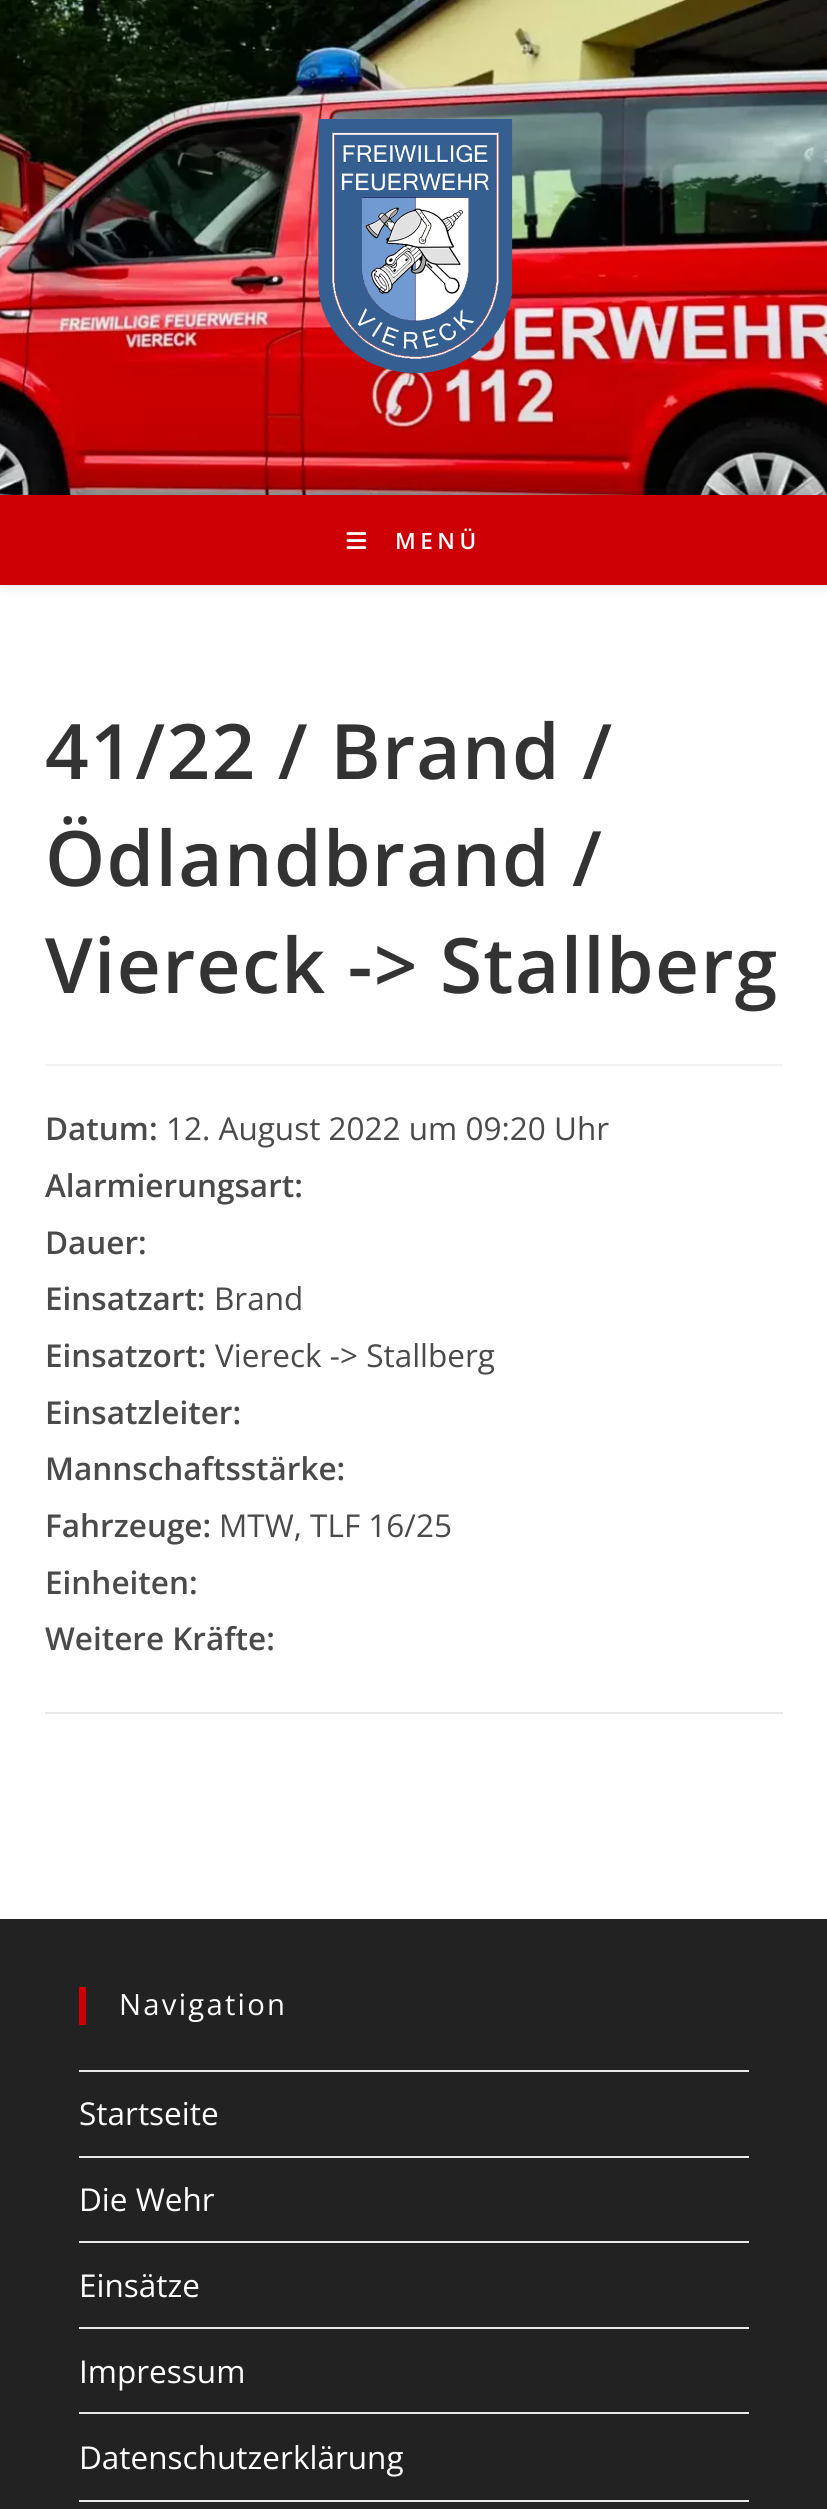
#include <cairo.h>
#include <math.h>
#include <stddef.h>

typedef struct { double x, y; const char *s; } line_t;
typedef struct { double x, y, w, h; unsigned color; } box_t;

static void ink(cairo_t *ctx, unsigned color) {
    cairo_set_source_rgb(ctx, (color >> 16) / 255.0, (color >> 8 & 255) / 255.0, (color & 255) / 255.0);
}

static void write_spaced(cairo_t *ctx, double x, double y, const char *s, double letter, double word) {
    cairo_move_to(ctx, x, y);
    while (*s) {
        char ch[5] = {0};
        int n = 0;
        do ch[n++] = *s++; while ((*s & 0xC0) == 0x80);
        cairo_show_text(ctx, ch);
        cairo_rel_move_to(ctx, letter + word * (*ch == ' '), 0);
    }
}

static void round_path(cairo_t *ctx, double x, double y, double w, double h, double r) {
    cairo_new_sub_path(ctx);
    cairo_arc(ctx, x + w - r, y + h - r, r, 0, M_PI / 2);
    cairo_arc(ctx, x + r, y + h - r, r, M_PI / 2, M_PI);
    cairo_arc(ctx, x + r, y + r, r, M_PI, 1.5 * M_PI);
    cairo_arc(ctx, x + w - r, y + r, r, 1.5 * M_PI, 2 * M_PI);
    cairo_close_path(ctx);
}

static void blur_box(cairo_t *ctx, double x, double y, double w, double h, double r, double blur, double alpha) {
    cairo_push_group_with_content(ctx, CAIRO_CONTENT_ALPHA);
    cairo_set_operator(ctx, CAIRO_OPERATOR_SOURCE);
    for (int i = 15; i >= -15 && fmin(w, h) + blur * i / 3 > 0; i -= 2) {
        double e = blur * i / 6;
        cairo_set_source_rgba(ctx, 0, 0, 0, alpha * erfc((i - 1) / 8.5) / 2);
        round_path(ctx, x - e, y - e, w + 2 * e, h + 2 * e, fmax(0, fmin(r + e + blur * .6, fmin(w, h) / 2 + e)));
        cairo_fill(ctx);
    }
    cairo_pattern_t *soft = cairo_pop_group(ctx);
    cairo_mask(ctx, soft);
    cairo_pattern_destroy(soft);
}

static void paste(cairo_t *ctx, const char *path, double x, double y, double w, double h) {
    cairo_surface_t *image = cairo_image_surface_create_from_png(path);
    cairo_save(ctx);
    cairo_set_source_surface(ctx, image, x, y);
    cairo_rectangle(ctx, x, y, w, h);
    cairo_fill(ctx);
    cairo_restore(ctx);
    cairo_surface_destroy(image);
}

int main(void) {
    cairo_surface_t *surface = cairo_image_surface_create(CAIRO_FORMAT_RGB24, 827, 2509);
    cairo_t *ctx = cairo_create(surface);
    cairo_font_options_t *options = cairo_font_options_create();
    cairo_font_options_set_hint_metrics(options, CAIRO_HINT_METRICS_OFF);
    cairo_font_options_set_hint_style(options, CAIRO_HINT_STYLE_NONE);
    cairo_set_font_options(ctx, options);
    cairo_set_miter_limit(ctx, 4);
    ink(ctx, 0xFFFFFF);
    cairo_paint(ctx);
    paste(ctx, "media/1.png", 0, 0, 827, 495);
    paste(ctx, "media/2.png", 318, 119, 195, 254);
    ink(ctx, 0x000000);
    blur_box(ctx, 0, 497, 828, 90, 0, 5.5, 0.1);
    ink(ctx, 0xCC0005);
    cairo_rectangle(ctx, 0, 495, 827, 90);
    cairo_fill(ctx);
    paste(ctx, "media/3.png", 346, 532, 21, 17);
    cairo_select_font_face(ctx, "Open Sans SemiBold", CAIRO_FONT_SLANT_NORMAL, CAIRO_FONT_WEIGHT_NORMAL);
    cairo_set_font_size(ctx, 22.5);
    ink(ctx, 0xFFFFFF);
    write_spaced(ctx, 395, 549, "MENÜ", 4.5, 0);
    ink(ctx, 0xF1F1F1);
    cairo_rectangle(ctx, 45, 1064, 738, 2);
    cairo_fill(ctx);
    cairo_set_font_size(ctx, 76.5);
    ink(ctx, 0x333333);
    {
        static const line_t items[] = {
            {45, 779, "41/22 / Brand /"},
            {45, 886, "Ödlandbrand /"},
            {45, 993, "Viereck -> Stallberg"},
        };
        for (size_t i = 0; i < sizeof items / sizeof *items; i++) {
            write_spaced(ctx, items[i].x, items[i].y, items[i].s, 1.35, 0);
        }
    }
    cairo_set_font_size(ctx, 31.5);
    ink(ctx, 0x4A4A4A);
    cairo_move_to(ctx, 45, 1140);
    cairo_show_text(ctx, "Datum:");
    cairo_select_font_face(ctx, "Open Sans", CAIRO_FONT_SLANT_NORMAL, CAIRO_FONT_WEIGHT_NORMAL);
    cairo_move_to(ctx, 166, 1140);
    cairo_show_text(ctx, "12. August 2022 um 09:20 Uhr");
    cairo_select_font_face(ctx, "Open Sans SemiBold", CAIRO_FONT_SLANT_NORMAL, CAIRO_FONT_WEIGHT_NORMAL);
    {
        static const line_t items[] = {
            {45, 1197, "Alarmierungsart:"},
            {45, 1254, "Dauer:"},
            {45, 1310, "Einsatzart:"},
        };
        for (size_t i = 0; i < sizeof items / sizeof *items; i++) {
            cairo_move_to(ctx, items[i].x, items[i].y);
            cairo_show_text(ctx, items[i].s);
        }
    }
    cairo_select_font_face(ctx, "Open Sans", CAIRO_FONT_SLANT_NORMAL, CAIRO_FONT_WEIGHT_NORMAL);
    cairo_move_to(ctx, 214, 1310);
    cairo_show_text(ctx, "Brand");
    cairo_select_font_face(ctx, "Open Sans SemiBold", CAIRO_FONT_SLANT_NORMAL, CAIRO_FONT_WEIGHT_NORMAL);
    cairo_move_to(ctx, 45, 1367);
    cairo_show_text(ctx, "Einsatzort:");
    cairo_select_font_face(ctx, "Open Sans", CAIRO_FONT_SLANT_NORMAL, CAIRO_FONT_WEIGHT_NORMAL);
    cairo_move_to(ctx, 215, 1367);
    cairo_show_text(ctx, "Viereck -> Stallberg");
    cairo_select_font_face(ctx, "Open Sans SemiBold", CAIRO_FONT_SLANT_NORMAL, CAIRO_FONT_WEIGHT_NORMAL);
    {
        static const line_t items[] = {
            {45, 1424, "Einsatzleiter:"},
            {45, 1480, "Mannschaftsstärke:"},
            {45, 1537, "Fahrzeuge:"},
        };
        for (size_t i = 0; i < sizeof items / sizeof *items; i++) {
            cairo_move_to(ctx, items[i].x, items[i].y);
            cairo_show_text(ctx, items[i].s);
        }
    }
    cairo_select_font_face(ctx, "Open Sans", CAIRO_FONT_SLANT_NORMAL, CAIRO_FONT_WEIGHT_NORMAL);
    cairo_move_to(ctx, 219, 1537);
    cairo_show_text(ctx, "MTW, TLF 16/25");
    cairo_select_font_face(ctx, "Open Sans SemiBold", CAIRO_FONT_SLANT_NORMAL, CAIRO_FONT_WEIGHT_NORMAL);
    cairo_move_to(ctx, 45, 1594);
    cairo_show_text(ctx, "Einheiten:");
    cairo_move_to(ctx, 45, 1650);
    cairo_show_text(ctx, "Weitere Kräfte:");
    {
        static const box_t items[] = {
            {45, 1712, 738, 2, 0xE9E9E9},
            {0, 1919, 827, 590, 0x222222},
            {79, 1987, 7, 38, 0xCC0005},
        };
        for (size_t i = 0; i < sizeof items / sizeof *items; i++) {
            ink(ctx, items[i].color);
            cairo_rectangle(ctx, items[i].x, items[i].y, items[i].w, items[i].h);
            cairo_fill(ctx);
        }
    }
    cairo_select_font_face(ctx, "Open Sans", CAIRO_FONT_SLANT_NORMAL, CAIRO_FONT_WEIGHT_NORMAL);
    cairo_set_font_size(ctx, 29.25);
    ink(ctx, 0xFFFFFF);
    write_spaced(ctx, 119, 2015, "Navigation", 2.25, 0);
    ink(ctx, 0xE9E9E9);
    cairo_rectangle(ctx, 79, 2070, 670, 2);
    cairo_fill(ctx);
    cairo_rectangle(ctx, 79, 2156, 670, 2);
    cairo_fill(ctx);
    cairo_set_font_size(ctx, 31.5);
    ink(ctx, 0xFFFFFF);
    cairo_move_to(ctx, 79, 2125);
    cairo_show_text(ctx, "Startseite");
    ink(ctx, 0xE9E9E9);
    cairo_rectangle(ctx, 79, 2241, 670, 2);
    cairo_fill(ctx);
    ink(ctx, 0xFFFFFF);
    cairo_move_to(ctx, 79, 2211);
    cairo_show_text(ctx, "Die Wehr");
    ink(ctx, 0xE9E9E9);
    cairo_rectangle(ctx, 79, 2327, 670, 2);
    cairo_fill(ctx);
    ink(ctx, 0xFFFFFF);
    cairo_move_to(ctx, 79, 2297);
    cairo_show_text(ctx, "Einsätze");
    ink(ctx, 0xE9E9E9);
    cairo_rectangle(ctx, 79, 2412, 670, 2);
    cairo_fill(ctx);
    ink(ctx, 0xFFFFFF);
    cairo_move_to(ctx, 79, 2383);
    cairo_show_text(ctx, "Impressum");
    ink(ctx, 0xE9E9E9);
    cairo_rectangle(ctx, 79, 2500, 670, 2);
    cairo_fill(ctx);
    ink(ctx, 0xFFFFFF);
    cairo_move_to(ctx, 79, 2469);
    cairo_show_text(ctx, "Datenschutzerklärung");
    cairo_surface_write_to_png(surface, "image.png");
    cairo_font_options_destroy(options);
    cairo_destroy(ctx);
    cairo_surface_destroy(surface);
    return 0;
}
